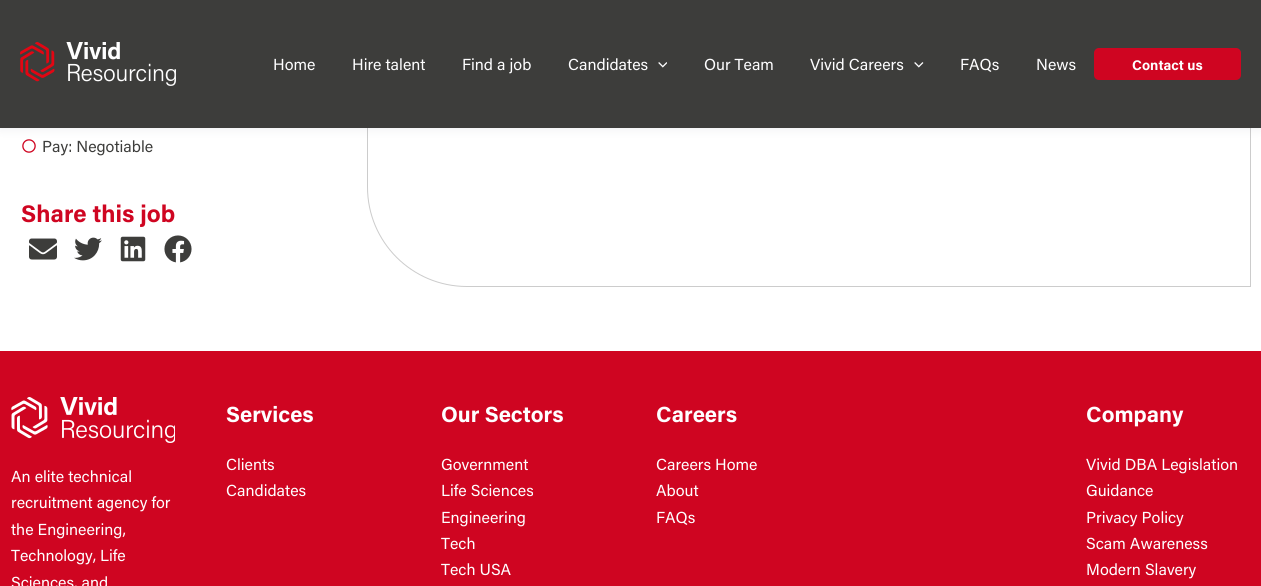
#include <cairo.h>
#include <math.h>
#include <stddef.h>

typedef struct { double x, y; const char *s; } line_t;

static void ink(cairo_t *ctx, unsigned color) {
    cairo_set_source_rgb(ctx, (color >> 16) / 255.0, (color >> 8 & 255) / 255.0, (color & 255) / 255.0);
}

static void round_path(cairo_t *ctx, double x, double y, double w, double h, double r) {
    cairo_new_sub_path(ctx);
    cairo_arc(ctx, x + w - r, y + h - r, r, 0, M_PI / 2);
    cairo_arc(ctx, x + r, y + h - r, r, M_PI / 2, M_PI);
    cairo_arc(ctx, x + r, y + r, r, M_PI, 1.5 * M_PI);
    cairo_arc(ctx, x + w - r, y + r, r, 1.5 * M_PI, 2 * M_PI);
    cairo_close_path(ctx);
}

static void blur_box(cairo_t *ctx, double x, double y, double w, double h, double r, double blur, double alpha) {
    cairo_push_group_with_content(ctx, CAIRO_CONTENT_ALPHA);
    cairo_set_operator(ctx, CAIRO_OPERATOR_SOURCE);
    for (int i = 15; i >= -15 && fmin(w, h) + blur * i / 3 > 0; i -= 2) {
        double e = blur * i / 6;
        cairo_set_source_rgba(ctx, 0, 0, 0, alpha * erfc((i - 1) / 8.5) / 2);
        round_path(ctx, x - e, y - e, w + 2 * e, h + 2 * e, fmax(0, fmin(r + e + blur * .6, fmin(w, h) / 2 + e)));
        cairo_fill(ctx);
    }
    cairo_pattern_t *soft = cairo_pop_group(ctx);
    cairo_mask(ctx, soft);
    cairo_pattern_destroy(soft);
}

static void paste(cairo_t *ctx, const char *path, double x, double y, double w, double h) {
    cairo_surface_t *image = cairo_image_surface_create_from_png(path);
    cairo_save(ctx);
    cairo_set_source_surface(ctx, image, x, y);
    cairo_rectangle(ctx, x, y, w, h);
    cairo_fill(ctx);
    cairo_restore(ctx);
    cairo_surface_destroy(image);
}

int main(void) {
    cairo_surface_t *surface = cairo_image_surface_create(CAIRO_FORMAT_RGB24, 1261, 586);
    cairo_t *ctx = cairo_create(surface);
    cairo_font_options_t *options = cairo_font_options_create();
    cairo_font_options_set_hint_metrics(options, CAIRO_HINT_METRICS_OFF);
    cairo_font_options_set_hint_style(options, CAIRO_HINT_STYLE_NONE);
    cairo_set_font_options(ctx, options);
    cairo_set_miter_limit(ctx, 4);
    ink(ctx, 0xCF0521);
    cairo_paint(ctx);
    ink(ctx, 0xFFFFFF);
    cairo_rectangle(ctx, 0, 128, 1261, 223);
    cairo_fill(ctx);
    paste(ctx, "media/4.png", 22, 139, 14, 14);
    cairo_new_path(ctx);
    cairo_move_to(ctx, 367.5, -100.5);
    cairo_line_to(ctx, 1250.5, -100.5);
    cairo_line_to(ctx, 1250.5, 286.5);
    cairo_line_to(ctx, 467, 286.5);
    cairo_curve_to(ctx, 412, 286.5, 367.5, 242, 367.5, 187);
    cairo_close_path(ctx);
    ink(ctx, 0xCCCCCC);
    cairo_set_line_width(ctx, 1);
    cairo_stroke(ctx);
    ink(ctx, 0x243242);
    blur_box(ctx, 0, 2, 1261, 128, 0, 5, 0.07);
    ink(ctx, 0x3D3D3B);
    cairo_rectangle(ctx, 0, 0, 1261, 128);
    cairo_fill(ctx);
    paste(ctx, "media/1.png", 20, 42, 156, 44);
    cairo_select_font_face(ctx, "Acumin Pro", CAIRO_FONT_SLANT_NORMAL, CAIRO_FONT_WEIGHT_NORMAL);
    cairo_set_font_size(ctx, 16);
    ink(ctx, 0xFEFEFF);
    {
        static const line_t items[] = {
            {273, 70, "Home"},
            {352, 70, "Hire talent"},
            {462, 70, "Find a job"},
            {568, 70, "Candidates"},
        };
        for (size_t i = 0; i < sizeof items / sizeof *items; i++) {
            cairo_move_to(ctx, items[i].x, items[i].y);
            cairo_show_text(ctx, items[i].s);
        }
    }
    paste(ctx, "media/2.png", 658, 62, 9, 6);
    cairo_move_to(ctx, 704, 70);
    cairo_show_text(ctx, "Our Team");
    cairo_move_to(ctx, 810, 70);
    cairo_show_text(ctx, "Vivid Careers");
    paste(ctx, "media/3.png", 914, 62, 10, 6);
    cairo_move_to(ctx, 960, 70);
    cairo_show_text(ctx, "FAQs");
    cairo_move_to(ctx, 1036, 70);
    cairo_show_text(ctx, "News");
    ink(ctx, 0xCF0521);
    round_path(ctx, 1094, 48, 147, 32, 5);
    cairo_fill(ctx);
    cairo_select_font_face(ctx, "Acumin Pro", CAIRO_FONT_SLANT_NORMAL, CAIRO_FONT_WEIGHT_BOLD);
    cairo_set_font_size(ctx, 14);
    ink(ctx, 0xFEFEFF);
    cairo_move_to(ctx, 1132, 70);
    cairo_show_text(ctx, "Contact us");
    cairo_select_font_face(ctx, "Acumin Pro", CAIRO_FONT_SLANT_NORMAL, CAIRO_FONT_WEIGHT_NORMAL);
    cairo_set_font_size(ctx, 16);
    ink(ctx, 0x3D3D3B);
    cairo_move_to(ctx, 42, 152);
    cairo_show_text(ctx, "Pay: Negotiable");
    cairo_select_font_face(ctx, "Acumin Pro", CAIRO_FONT_SLANT_NORMAL, CAIRO_FONT_WEIGHT_BOLD);
    cairo_set_font_size(ctx, 24);
    ink(ctx, 0xCF0521);
    cairo_move_to(ctx, 21, 222);
    cairo_show_text(ctx, "Share this job");
    paste(ctx, "media/5.png", 29, 238, 28, 22);
    paste(ctx, "media/6.png", 74, 237, 28, 24);
    paste(ctx, "media/7.png", 120, 236, 26, 26);
    paste(ctx, "media/8.png", 164, 235, 28, 28);
    paste(ctx, "media/9.png", 11, 397, 164, 46);
    cairo_select_font_face(ctx, "Acumin Pro", CAIRO_FONT_SLANT_NORMAL, CAIRO_FONT_WEIGHT_NORMAL);
    cairo_set_font_size(ctx, 16);
    ink(ctx, 0xFEFEFF);
    {
        static const line_t items[] = {
            {11, 482, "An elite technical"},
            {11, 508, "recruitment agency for"},
            {11, 535, "the Engineering,"},
            {11, 561, "Technology, Life"},
            {11, 588, "Sciences, and"},
        };
        for (size_t i = 0; i < sizeof items / sizeof *items; i++) {
            cairo_move_to(ctx, items[i].x, items[i].y);
            cairo_show_text(ctx, items[i].s);
        }
    }
    cairo_select_font_face(ctx, "Acumin Pro", CAIRO_FONT_SLANT_NORMAL, CAIRO_FONT_WEIGHT_BOLD);
    cairo_set_font_size(ctx, 22);
    cairo_move_to(ctx, 226, 422);
    cairo_show_text(ctx, "Services");
    cairo_select_font_face(ctx, "Acumin Pro", CAIRO_FONT_SLANT_NORMAL, CAIRO_FONT_WEIGHT_NORMAL);
    cairo_set_font_size(ctx, 16);
    cairo_move_to(ctx, 226, 470);
    cairo_show_text(ctx, "Clients");
    cairo_move_to(ctx, 226, 496);
    cairo_show_text(ctx, "Candidates");
    cairo_select_font_face(ctx, "Acumin Pro", CAIRO_FONT_SLANT_NORMAL, CAIRO_FONT_WEIGHT_BOLD);
    cairo_set_font_size(ctx, 22);
    cairo_move_to(ctx, 441, 422);
    cairo_show_text(ctx, "Our Sectors");
    cairo_select_font_face(ctx, "Acumin Pro", CAIRO_FONT_SLANT_NORMAL, CAIRO_FONT_WEIGHT_NORMAL);
    cairo_set_font_size(ctx, 16);
    {
        static const line_t items[] = {
            {441, 470, "Government"},
            {441, 496, "Life Sciences"},
            {441, 523, "Engineering"},
            {441, 549, "Tech"},
            {441, 575, "Tech USA"},
        };
        for (size_t i = 0; i < sizeof items / sizeof *items; i++) {
            cairo_move_to(ctx, items[i].x, items[i].y);
            cairo_show_text(ctx, items[i].s);
        }
    }
    cairo_select_font_face(ctx, "Acumin Pro", CAIRO_FONT_SLANT_NORMAL, CAIRO_FONT_WEIGHT_BOLD);
    cairo_set_font_size(ctx, 22);
    cairo_move_to(ctx, 656, 422);
    cairo_show_text(ctx, "Careers");
    cairo_select_font_face(ctx, "Acumin Pro", CAIRO_FONT_SLANT_NORMAL, CAIRO_FONT_WEIGHT_NORMAL);
    cairo_set_font_size(ctx, 16);
    {
        static const line_t items[] = {
            {656, 470, "Careers Home"},
            {656, 496, "About"},
            {656, 523, "FAQs"},
        };
        for (size_t i = 0; i < sizeof items / sizeof *items; i++) {
            cairo_move_to(ctx, items[i].x, items[i].y);
            cairo_show_text(ctx, items[i].s);
        }
    }
    cairo_select_font_face(ctx, "Acumin Pro", CAIRO_FONT_SLANT_NORMAL, CAIRO_FONT_WEIGHT_BOLD);
    cairo_set_font_size(ctx, 22);
    cairo_move_to(ctx, 1086, 422);
    cairo_show_text(ctx, "Company");
    cairo_select_font_face(ctx, "Acumin Pro", CAIRO_FONT_SLANT_NORMAL, CAIRO_FONT_WEIGHT_NORMAL);
    cairo_set_font_size(ctx, 16);
    {
        static const line_t items[] = {
            {1086, 470, "Vivid DBA Legislation"},
            {1086, 496, "Guidance"},
            {1086, 523, "Privacy Policy"},
            {1086, 549, "Scam Awareness"},
            {1086, 575, "Modern Slavery"},
        };
        for (size_t i = 0; i < sizeof items / sizeof *items; i++) {
            cairo_move_to(ctx, items[i].x, items[i].y);
            cairo_show_text(ctx, items[i].s);
        }
    }
    cairo_surface_write_to_png(surface, "image.png");
    cairo_font_options_destroy(options);
    cairo_destroy(ctx);
    cairo_surface_destroy(surface);
    return 0;
}
